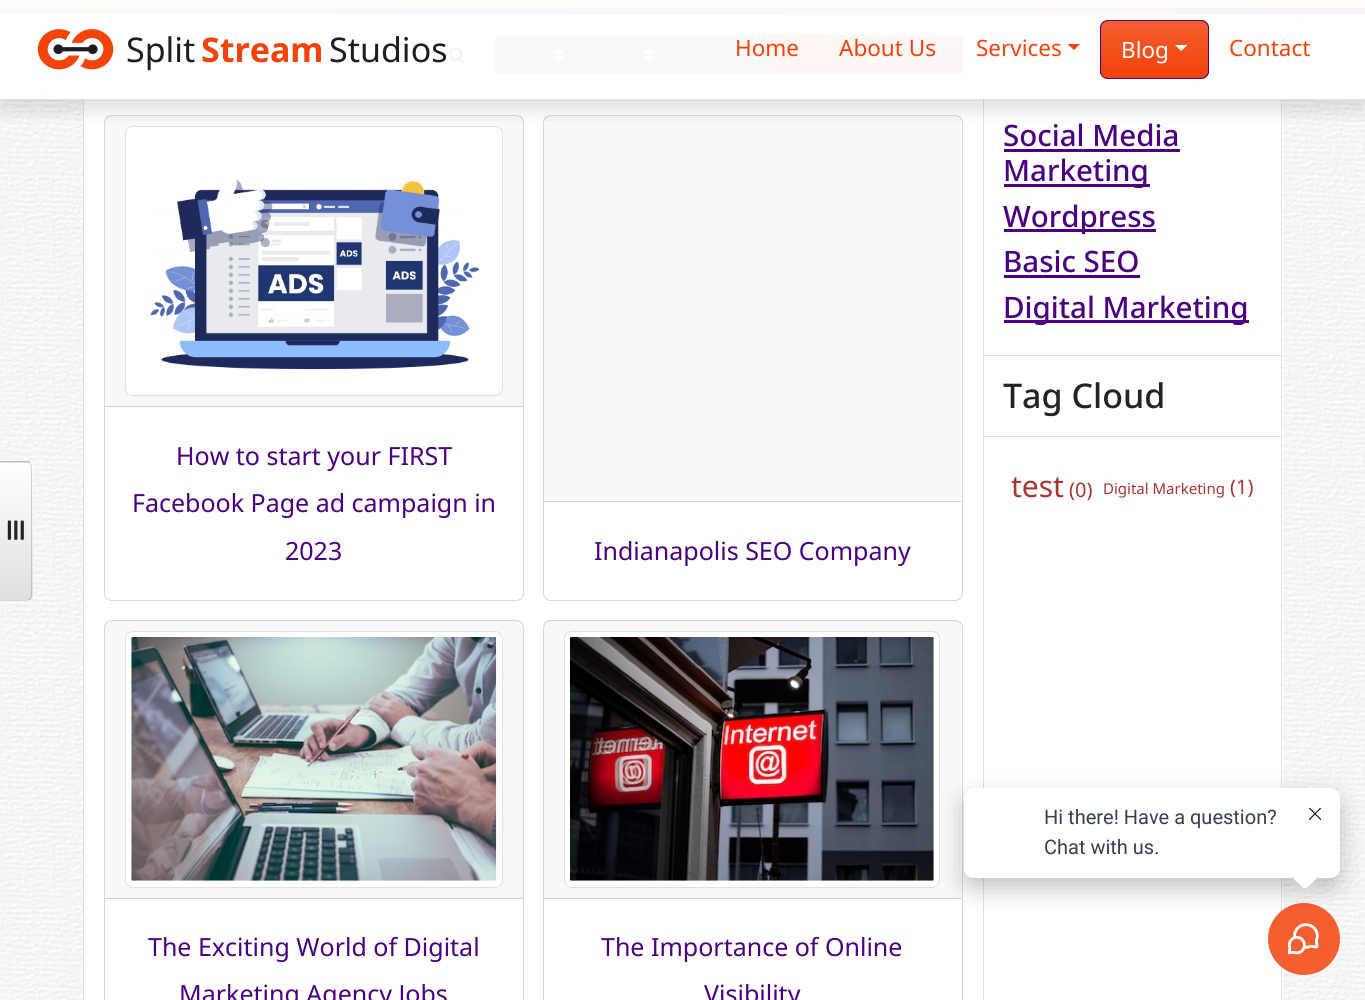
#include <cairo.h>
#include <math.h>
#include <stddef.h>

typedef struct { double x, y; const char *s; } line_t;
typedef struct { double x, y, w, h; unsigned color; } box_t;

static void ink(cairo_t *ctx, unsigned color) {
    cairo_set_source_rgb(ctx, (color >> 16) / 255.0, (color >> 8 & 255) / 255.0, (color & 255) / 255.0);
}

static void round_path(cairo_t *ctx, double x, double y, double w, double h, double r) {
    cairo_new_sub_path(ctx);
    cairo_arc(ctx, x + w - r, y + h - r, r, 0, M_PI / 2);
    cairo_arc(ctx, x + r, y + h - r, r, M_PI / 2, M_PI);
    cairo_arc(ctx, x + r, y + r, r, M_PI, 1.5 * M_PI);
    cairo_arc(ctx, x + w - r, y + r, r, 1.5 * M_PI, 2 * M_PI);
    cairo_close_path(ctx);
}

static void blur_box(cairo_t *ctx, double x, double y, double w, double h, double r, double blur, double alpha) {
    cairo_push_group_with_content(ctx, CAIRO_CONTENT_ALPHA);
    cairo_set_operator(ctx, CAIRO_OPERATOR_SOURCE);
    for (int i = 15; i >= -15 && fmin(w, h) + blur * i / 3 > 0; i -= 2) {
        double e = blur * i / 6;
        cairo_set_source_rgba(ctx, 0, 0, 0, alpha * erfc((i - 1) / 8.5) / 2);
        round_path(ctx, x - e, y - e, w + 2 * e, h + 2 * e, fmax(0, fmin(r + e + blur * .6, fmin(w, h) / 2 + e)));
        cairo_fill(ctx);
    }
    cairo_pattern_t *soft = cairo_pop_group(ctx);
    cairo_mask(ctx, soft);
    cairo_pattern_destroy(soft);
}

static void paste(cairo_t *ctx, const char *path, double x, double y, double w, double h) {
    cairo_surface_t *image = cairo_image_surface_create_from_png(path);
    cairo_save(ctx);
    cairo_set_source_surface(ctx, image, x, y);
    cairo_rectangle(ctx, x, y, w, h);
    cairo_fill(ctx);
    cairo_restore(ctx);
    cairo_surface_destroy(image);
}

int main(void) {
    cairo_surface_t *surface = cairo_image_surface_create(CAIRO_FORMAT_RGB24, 1365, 1000);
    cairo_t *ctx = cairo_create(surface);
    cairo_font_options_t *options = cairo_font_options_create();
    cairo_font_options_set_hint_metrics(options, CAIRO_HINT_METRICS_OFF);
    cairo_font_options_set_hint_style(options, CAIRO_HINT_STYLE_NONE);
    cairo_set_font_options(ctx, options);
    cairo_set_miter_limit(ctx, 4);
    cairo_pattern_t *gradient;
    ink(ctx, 0xFFFFFF);
    cairo_paint(ctx);
    paste(ctx, "media/3.png", 0, 14, 1365, 986);
    cairo_save(ctx);
    cairo_new_path(ctx);
    cairo_move_to(ctx, -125, 461);
    cairo_line_to(ctx, 27, 461);
    cairo_curve_to(ctx, 30.5, 461, 33, 463.5, 33, 467);
    cairo_line_to(ctx, 33, 595);
    cairo_curve_to(ctx, 33, 598.5, 30.5, 601, 27, 601);
    cairo_line_to(ctx, -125, 601);
    cairo_close_path(ctx);
    cairo_clip(ctx);
    gradient = cairo_pattern_create_linear(-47, 463, -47, 325);
    cairo_pattern_add_color_stop_rgba(gradient, 0, 0.008, 0, 0.141, 1);
    cairo_pattern_add_color_stop_rgba(gradient, 0, 0.875, 0.875, 0.875, 1);
    cairo_pattern_add_color_stop_rgba(gradient, 1, 1, 1, 1, 1);
    cairo_set_source(ctx, gradient);
    cairo_pattern_destroy(gradient);
    cairo_rectangle(ctx, 0, 461, 33, 2);
    cairo_fill(ctx);
    gradient = cairo_pattern_create_linear(-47, 600, -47, 463);
    cairo_pattern_add_color_stop_rgba(gradient, 0, 0.008, 0, 0.141, 1);
    cairo_pattern_add_color_stop_rgba(gradient, 0, 0.875, 0.875, 0.875, 1);
    cairo_pattern_add_color_stop_rgba(gradient, 1, 1, 1, 1, 1);
    cairo_set_source(ctx, gradient);
    cairo_pattern_destroy(gradient);
    cairo_rectangle(ctx, 0, 463, 33, 137);
    cairo_fill(ctx);
    gradient = cairo_pattern_create_linear(-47, 738, -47, 600);
    cairo_pattern_add_color_stop_rgba(gradient, 0, 0.008, 0, 0.141, 1);
    cairo_pattern_add_color_stop_rgba(gradient, 0, 0.875, 0.875, 0.875, 1);
    cairo_pattern_add_color_stop_rgba(gradient, 1, 1, 1, 1, 1);
    cairo_set_source(ctx, gradient);
    cairo_pattern_destroy(gradient);
    cairo_rectangle(ctx, 0, 600, 33, 1);
    cairo_fill(ctx);
    cairo_restore(ctx);
    cairo_set_source_rgba(ctx, 0.11, 0.114, 0.133, 0.18);
    cairo_set_fill_rule(ctx, CAIRO_FILL_RULE_EVEN_ODD);
    cairo_new_path(ctx);
    cairo_move_to(ctx, -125, 461);
    cairo_line_to(ctx, 26, 461);
    cairo_curve_to(ctx, 30, 461, 32, 464, 32, 468);
    cairo_line_to(ctx, 32, 595);
    cairo_curve_to(ctx, 32, 598, 30, 601, 26, 601);
    cairo_line_to(ctx, -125, 601);
    cairo_close_path(ctx);
    cairo_move_to(ctx, -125, 462);
    cairo_line_to(ctx, 26, 462);
    cairo_curve_to(ctx, 29, 462, 31, 465, 31, 468);
    cairo_line_to(ctx, 31, 595);
    cairo_curve_to(ctx, 31, 598, 29, 600, 26, 600);
    cairo_line_to(ctx, -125, 600);
    cairo_close_path(ctx);
    cairo_fill(ctx);
    paste(ctx, "media/1.png", 7, 520, 17, 20);
    ink(ctx, 0xFBB59D);
    cairo_rectangle(ctx, 0, 0, 1365, 8);
    cairo_fill(ctx);
    gradient = cairo_pattern_create_linear(169, -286, 1196, 307);
    cairo_pattern_add_color_stop_rgba(gradient, 0, 0.647, 0.498, 0.753, 1);
    cairo_pattern_add_color_stop_rgba(gradient, 1, 0.294, 0, 0.51, 1);
    cairo_set_source(ctx, gradient);
    cairo_pattern_destroy(gradient);
    cairo_rectangle(ctx, 0, 8, 1365, 6);
    cairo_fill(ctx);
    {
        static const box_t items[] = {
            {84, 14, 1199, 986, 0xFFFFFF},
            {1281, 14, 1, 986, 0xDEE2E6},
            {83, 14, 1, 986, 0xDEE2E6},
            {983, 14, 1, 986, 0xDEE2E6},
            {984, 14, 297, 1, 0xDEE2E6},
            {984, 96, 297, 1, 0xDEE2E6},
            {84, 14, 899, 1, 0xDEE2E6},
            {84, 94, 899, 1, 0xDEE2E6},
            {260, 35, 179, 1, 0xDEE2E6},
            {260, 73, 179, 1, 0xDEE2E6},
        };
        for (size_t i = 0; i < sizeof items / sizeof *items; i++) {
            ink(ctx, items[i].color);
            cairo_rectangle(ctx, items[i].x, items[i].y, items[i].w, items[i].h);
            cairo_fill(ctx);
        }
    }
    cairo_new_path(ctx);
    cairo_move_to(ctx, 109, 35.5);
    cairo_line_to(ctx, 260.5, 35.5);
    cairo_line_to(ctx, 260.5, 73.5);
    cairo_line_to(ctx, 109, 73.5);
    cairo_curve_to(ctx, 106.5, 73.5, 104.5, 71.5, 104.5, 69);
    cairo_line_to(ctx, 104.5, 40);
    cairo_curve_to(ctx, 104.5, 37.5, 106.5, 35.5, 109, 35.5);
    cairo_close_path(ctx);
    cairo_set_line_width(ctx, 1);
    cairo_stroke(ctx);
    ink(ctx, 0x1C1D22);
    cairo_set_fill_rule(ctx, CAIRO_FILL_RULE_WINDING);
    cairo_new_path(ctx);
    cairo_move_to(ctx, 240, 51);
    cairo_line_to(ctx, 250, 51);
    cairo_line_to(ctx, 245, 56);
    cairo_close_path(ctx);
    cairo_fill(ctx);
    cairo_new_path(ctx);
    cairo_move_to(ctx, 438.5, 35.5);
    cairo_line_to(ctx, 471, 35.5);
    cairo_curve_to(ctx, 473.5, 35.5, 475.5, 37.5, 475.5, 40);
    cairo_line_to(ctx, 475.5, 69);
    cairo_curve_to(ctx, 475.5, 71.5, 473.5, 73.5, 471, 73.5);
    cairo_line_to(ctx, 438.5, 73.5);
    cairo_close_path(ctx);
    ink(ctx, 0xDEE2E6);
    cairo_stroke(ctx);
    paste(ctx, "media/4.png", 448, 47, 17, 17);
    ink(ctx, 0x6C757D);
    cairo_new_path(ctx);
    cairo_move_to(ctx, 500, 35);
    cairo_line_to(ctx, 575, 35);
    cairo_line_to(ctx, 575, 74);
    cairo_line_to(ctx, 500, 74);
    cairo_curve_to(ctx, 497, 74, 495, 72, 495, 69);
    cairo_line_to(ctx, 495, 40);
    cairo_curve_to(ctx, 495, 37, 497, 35, 500, 35);
    cairo_close_path(ctx);
    cairo_fill(ctx);
    cairo_save(ctx);
    cairo_new_path(ctx);
    cairo_move_to(ctx, 500, 35);
    cairo_line_to(ctx, 575, 35);
    cairo_line_to(ctx, 575, 74);
    cairo_line_to(ctx, 500, 74);
    cairo_curve_to(ctx, 497, 74, 495, 72, 495, 69);
    cairo_line_to(ctx, 495, 40);
    cairo_curve_to(ctx, 495, 37, 497, 35, 500, 35);
    cairo_close_path(ctx);
    cairo_clip(ctx);
    gradient = cairo_pattern_create_linear(535, 36, 535, 73);
    cairo_pattern_add_color_stop_rgba(gradient, 0, 1, 1, 1, 0.15);
    cairo_pattern_add_color_stop_rgba(gradient, 1, 1, 1, 1, 0);
    cairo_set_source(ctx, gradient);
    cairo_pattern_destroy(gradient);
    cairo_rectangle(ctx, 495, 36, 79, 32);
    cairo_fill(ctx);
    cairo_restore(ctx);
    cairo_new_path(ctx);
    cairo_move_to(ctx, 500, 35.5);
    cairo_line_to(ctx, 574.5, 35.5);
    cairo_line_to(ctx, 574.5, 73.5);
    cairo_line_to(ctx, 500, 73.5);
    cairo_curve_to(ctx, 497.5, 73.5, 495.5, 71.5, 495.5, 69);
    cairo_line_to(ctx, 495.5, 40);
    cairo_curve_to(ctx, 495.5, 37.5, 497.5, 35.5, 500, 35.5);
    cairo_close_path(ctx);
    cairo_stroke(ctx);
    paste(ctx, "media/5.png", 553, 48, 11, 14);
    gradient = cairo_pattern_create_linear(619, 36, 619, 73);
    cairo_pattern_add_color_stop_rgba(gradient, 0, 0.51, 0.541, 0.569, 1);
    cairo_pattern_add_color_stop_rgba(gradient, 1, 0.424, 0.459, 0.49, 1);
    cairo_set_source(ctx, gradient);
    cairo_pattern_destroy(gradient);
    cairo_rectangle(ctx, 575, 36, 89, 37);
    cairo_fill(ctx);
    cairo_rectangle(ctx, 574.5, 35.5, 90, 38);
    ink(ctx, 0x6C757D);
    cairo_stroke(ctx);
    paste(ctx, "media/6.png", 643, 48, 11, 14);
    gradient = cairo_pattern_create_linear(718, 36, 718, 73);
    cairo_pattern_add_color_stop_rgba(gradient, 0, 0.51, 0.541, 0.569, 1);
    cairo_pattern_add_color_stop_rgba(gradient, 1, 0.424, 0.459, 0.49, 1);
    cairo_set_source(ctx, gradient);
    cairo_pattern_destroy(gradient);
    cairo_rectangle(ctx, 665, 36, 106, 37);
    cairo_fill(ctx);
    cairo_rectangle(ctx, 664.5, 35.5, 108, 38);
    ink(ctx, 0x6C757D);
    cairo_stroke(ctx);
    paste(ctx, "media/7.png", 751, 48, 11, 14);
    gradient = cairo_pattern_create_linear(829, 36, 829, 73);
    cairo_pattern_add_color_stop_rgba(gradient, 0, 0.957, 0.373, 0.184, 1);
    cairo_pattern_add_color_stop_rgba(gradient, 1, 0.949, 0.263, 0.039, 1);
    cairo_set_source(ctx, gradient);
    cairo_pattern_destroy(gradient);
    cairo_rectangle(ctx, 772, 36, 113, 37);
    cairo_fill(ctx);
    cairo_rectangle(ctx, 771.5, 35.5, 114, 38);
    ink(ctx, 0xF2430A);
    cairo_stroke(ctx);
    paste(ctx, "media/8.png", 865, 56, 10, 6);
    ink(ctx, 0xDC3545);
    cairo_new_path(ctx);
    cairo_move_to(ctx, 885, 35);
    cairo_line_to(ctx, 958, 35);
    cairo_curve_to(ctx, 961, 35, 963, 37, 963, 40);
    cairo_line_to(ctx, 963, 69);
    cairo_curve_to(ctx, 963, 72, 961, 74, 958, 74);
    cairo_line_to(ctx, 885, 74);
    cairo_close_path(ctx);
    cairo_fill(ctx);
    cairo_save(ctx);
    cairo_new_path(ctx);
    cairo_move_to(ctx, 885, 35);
    cairo_line_to(ctx, 958, 35);
    cairo_curve_to(ctx, 961, 35, 963, 37, 963, 40);
    cairo_line_to(ctx, 963, 69);
    cairo_curve_to(ctx, 963, 72, 961, 74, 958, 74);
    cairo_line_to(ctx, 885, 74);
    cairo_close_path(ctx);
    cairo_clip(ctx);
    gradient = cairo_pattern_create_linear(924, 36, 924, 73);
    cairo_pattern_add_color_stop_rgba(gradient, 0, 1, 1, 1, 0.15);
    cairo_pattern_add_color_stop_rgba(gradient, 1, 1, 1, 1, 0);
    cairo_set_source(ctx, gradient);
    cairo_pattern_destroy(gradient);
    cairo_rectangle(ctx, 886, 36, 77, 32);
    cairo_fill(ctx);
    cairo_restore(ctx);
    cairo_new_path(ctx);
    cairo_move_to(ctx, 885.5, 35.5);
    cairo_line_to(ctx, 958, 35.5);
    cairo_curve_to(ctx, 960.5, 35.5, 962.5, 37.5, 962.5, 40);
    cairo_line_to(ctx, 962.5, 69);
    cairo_curve_to(ctx, 962.5, 71.5, 960.5, 73.5, 958, 73.5);
    cairo_line_to(ctx, 885.5, 73.5);
    cairo_close_path(ctx);
    cairo_stroke(ctx);
    round_path(ctx, 104.5, 115.5, 419, 485, 7.5);
    ink(ctx, 0xD7D7D8);
    cairo_stroke(ctx);
    cairo_set_source_rgba(ctx, 0.11, 0.114, 0.133, 0.03);
    cairo_rectangle(ctx, 105, 116, 418, 292);
    cairo_fill(ctx);
    ink(ctx, 0xFFFFFF);
    round_path(ctx, 125.5, 126.5, 377, 269, 7.5);
    cairo_fill_preserve(ctx);
    ink(ctx, 0xDEE2E6);
    cairo_stroke(ctx);
    round_path(ctx, 543.5, 115.5, 419, 485, 7.5);
    ink(ctx, 0xD7D7D8);
    cairo_stroke(ctx);
    cairo_set_source_rgba(ctx, 0.11, 0.114, 0.133, 0.03);
    cairo_rectangle(ctx, 544, 116, 417, 387);
    cairo_fill(ctx);
    cairo_save(ctx);
    cairo_rectangle(ctx, 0, 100, 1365, 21);
    cairo_clip(ctx);
    ink(ctx, 0x1C1D22);
    blur_box(ctx, 0, 10, 1365, 100, 0, 10, 0.15);
    cairo_restore(ctx);
    cairo_set_source_rgba(ctx, 1, 1, 1, 0.95);
    cairo_rectangle(ctx, 0, 0, 1365, 99);
    cairo_fill(ctx);
    ink(ctx, 0xDEE2E6);
    cairo_rectangle(ctx, 0, 99, 1365, 1);
    cairo_fill(ctx);
    paste(ctx, "media/2.png", 37, 29, 77, 41);
    cairo_select_font_face(ctx, "Noto Sans", CAIRO_FONT_SLANT_NORMAL, CAIRO_FONT_WEIGHT_NORMAL);
    cairo_set_font_size(ctx, 34);
    ink(ctx, 0x1C1D22);
    cairo_move_to(ctx, 126, 62);
    cairo_show_text(ctx, "Split");
    cairo_select_font_face(ctx, "Noto Sans", CAIRO_FONT_SLANT_NORMAL, CAIRO_FONT_WEIGHT_BOLD);
    ink(ctx, 0xF2430A);
    cairo_move_to(ctx, 201, 62);
    cairo_show_text(ctx, "Stream");
    cairo_select_font_face(ctx, "Noto Sans", CAIRO_FONT_SLANT_NORMAL, CAIRO_FONT_WEIGHT_NORMAL);
    ink(ctx, 0x1C1D22);
    cairo_move_to(ctx, 329, 62);
    cairo_show_text(ctx, "Studios");
    cairo_set_font_size(ctx, 22.5);
    ink(ctx, 0xF2430A);
    {
        static const line_t items[] = {
            {735, 56, "Home"},
            {839, 56, "About Us"},
            {976, 56, "Services"},
        };
        for (size_t i = 0; i < sizeof items / sizeof *items; i++) {
            cairo_move_to(ctx, items[i].x, items[i].y);
            cairo_show_text(ctx, items[i].s);
        }
    }
    cairo_new_path(ctx);
    cairo_move_to(ctx, 1067.5, 44);
    cairo_line_to(ctx, 1080, 44);
    cairo_line_to(ctx, 1074, 50);
    cairo_close_path(ctx);
    cairo_fill(ctx);
    round_path(ctx, 1100, 20, 109, 59, 8);
    cairo_fill(ctx);
    cairo_save(ctx);
    round_path(ctx, 1100, 20, 109, 59, 8);
    cairo_clip(ctx);
    gradient = cairo_pattern_create_linear(1154, 21, 1154, 78);
    cairo_pattern_add_color_stop_rgba(gradient, 0, 1, 1, 1, 0.15);
    cairo_pattern_add_color_stop_rgba(gradient, 1, 1, 1, 1, 0);
    cairo_set_source(ctx, gradient);
    cairo_pattern_destroy(gradient);
    cairo_rectangle(ctx, 1100, 21, 109, 49);
    cairo_fill(ctx);
    cairo_restore(ctx);
    round_path(ctx, 1100.5, 20.5, 108, 58, 7.5);
    ink(ctx, 0x4B0082);
    cairo_stroke(ctx);
    ink(ctx, 0xFFFFFF);
    cairo_move_to(ctx, 1121, 58);
    cairo_show_text(ctx, "Blog");
    cairo_new_path(ctx);
    cairo_move_to(ctx, 1175, 45);
    cairo_line_to(ctx, 1187.5, 45);
    cairo_line_to(ctx, 1181, 51);
    cairo_close_path(ctx);
    cairo_fill(ctx);
    ink(ctx, 0xF2430A);
    cairo_move_to(ctx, 1229, 56);
    cairo_show_text(ctx, "Contact");
    cairo_select_font_face(ctx, "Noto Sans Medium", CAIRO_FONT_SLANT_NORMAL, CAIRO_FONT_WEIGHT_NORMAL);
    cairo_set_font_size(ctx, 29.5);
    ink(ctx, 0x4B0082);
    cairo_move_to(ctx, 1003, 146);
    cairo_show_text(ctx, "Social Media");
    cairo_rectangle(ctx, 1004, 149, 176, 3);
    cairo_fill(ctx);
    cairo_rectangle(ctx, 1004, 184, 146, 3);
    cairo_fill(ctx);
    cairo_move_to(ctx, 1003, 181);
    cairo_show_text(ctx, "Marketing");
    cairo_rectangle(ctx, 1004, 229, 152, 3);
    cairo_fill(ctx);
    cairo_move_to(ctx, 1003, 227);
    cairo_show_text(ctx, "Wordpress");
    cairo_move_to(ctx, 1003, 272);
    cairo_show_text(ctx, "Basic SEO");
    cairo_rectangle(ctx, 1004, 275, 136, 3);
    cairo_fill(ctx);
    cairo_rectangle(ctx, 1004, 320, 245, 3);
    cairo_fill(ctx);
    cairo_move_to(ctx, 1003, 318);
    cairo_show_text(ctx, "Digital Marketing");
    ink(ctx, 0xDEE2E6);
    cairo_rectangle(ctx, 984, 355, 297, 1);
    cairo_fill(ctx);
    cairo_rectangle(ctx, 984, 436, 297, 1);
    cairo_fill(ctx);
    cairo_set_font_size(ctx, 34);
    ink(ctx, 0x212529);
    cairo_move_to(ctx, 1003, 408);
    cairo_show_text(ctx, "Tag Cloud");
    cairo_select_font_face(ctx, "Noto Sans", CAIRO_FONT_SLANT_NORMAL, CAIRO_FONT_WEIGHT_NORMAL);
    cairo_set_font_size(ctx, 30);
    ink(ctx, 0xAA3333);
    cairo_move_to(ctx, 1011, 497);
    cairo_show_text(ctx, "test");
    cairo_set_font_size(ctx, 20);
    cairo_move_to(ctx, 1069, 497);
    cairo_show_text(ctx, "(0)");
    cairo_set_font_size(ctx, 15);
    cairo_move_to(ctx, 1103, 494);
    cairo_show_text(ctx, "Digital Marketing");
    cairo_set_font_size(ctx, 20);
    cairo_move_to(ctx, 1230, 494);
    cairo_show_text(ctx, "(1)");
    ink(ctx, 0xD1D2D3);
    cairo_rectangle(ctx, 105, 406, 418, 1);
    cairo_fill(ctx);
    paste(ctx, "media/9.png", 150, 179, 330, 191);
    cairo_set_font_size(ctx, 25);
    ink(ctx, 0x4B0082);
    {
        static const line_t items[] = {
            {176, 465, "How to start your FIRST"},
            {132, 512, "Facebook Page ad campaign in"},
            {285, 560, "2023"},
        };
        for (size_t i = 0; i < sizeof items / sizeof *items; i++) {
            cairo_move_to(ctx, items[i].x, items[i].y);
            cairo_show_text(ctx, items[i].s);
        }
    }
    ink(ctx, 0xD1D2D3);
    cairo_rectangle(ctx, 544, 501, 417, 1);
    cairo_fill(ctx);
    ink(ctx, 0x4B0082);
    cairo_move_to(ctx, 594, 560);
    cairo_show_text(ctx, "Indianapolis SEO Company");
    round_path(ctx, 104.5, 620.5, 419, 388, 7.5);
    ink(ctx, 0xD7D7D8);
    cairo_stroke(ctx);
    cairo_set_source_rgba(ctx, 0.11, 0.114, 0.133, 0.03);
    cairo_rectangle(ctx, 105, 621, 418, 277);
    cairo_fill(ctx);
    ink(ctx, 0xD1D2D3);
    cairo_rectangle(ctx, 105, 898, 418, 1);
    cairo_fill(ctx);
    ink(ctx, 0xFFFFFF);
    round_path(ctx, 125.5, 631.5, 377, 256, 7.5);
    cairo_fill_preserve(ctx);
    ink(ctx, 0xDEE2E6);
    cairo_stroke(ctx);
    paste(ctx, "media/10.png", 131, 637, 366, 244);
    ink(ctx, 0x4B0082);
    cairo_move_to(ctx, 148, 956);
    cairo_show_text(ctx, "The Exciting World of Digital");
    cairo_move_to(ctx, 179, 1003);
    cairo_show_text(ctx, "Marketing Agency Jobs");
    round_path(ctx, 543.5, 620.5, 419, 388, 7.5);
    ink(ctx, 0xD7D7D8);
    cairo_stroke(ctx);
    cairo_set_source_rgba(ctx, 0.11, 0.114, 0.133, 0.03);
    cairo_rectangle(ctx, 544, 621, 417, 277);
    cairo_fill(ctx);
    ink(ctx, 0xD1D2D3);
    cairo_rectangle(ctx, 544, 898, 417, 1);
    cairo_fill(ctx);
    ink(ctx, 0xFFFFFF);
    round_path(ctx, 564.5, 631.5, 375, 256, 7.5);
    cairo_fill_preserve(ctx);
    ink(ctx, 0xDEE2E6);
    cairo_stroke(ctx);
    paste(ctx, "media/11.png", 570, 637, 364, 244);
    ink(ctx, 0x4B0082);
    cairo_move_to(ctx, 601, 956);
    cairo_show_text(ctx, "The Importance of Online");
    cairo_move_to(ctx, 704, 1003);
    cairo_show_text(ctx, "Visibility");
    ink(ctx, 0xF45F2F);
    cairo_new_path(ctx);
    cairo_arc(ctx, 1304, 939, 36, 0, 2 * M_PI);
    cairo_fill(ctx);
    paste(ctx, "media/13.png", 1288, 923, 31, 32);
    ink(ctx, 0x000000);
    blur_box(ctx, 964, 798, 376, 90, 10, 12.5, 0.24);
    ink(ctx, 0xFFFFFF);
    round_path(ctx, 964, 788, 376, 90, 10);
    cairo_fill(ctx);
    cairo_select_font_face(ctx, "Roboto", CAIRO_FONT_SLANT_NORMAL, CAIRO_FONT_WEIGHT_NORMAL);
    cairo_set_font_size(ctx, 20);
    ink(ctx, 0x344054);
    cairo_move_to(ctx, 1044, 824);
    cairo_show_text(ctx, "Hi there! Have a question?");
    cairo_move_to(ctx, 1044, 854);
    cairo_show_text(ctx, "Chat with us.");
    ink(ctx, 0xFFFFFF);
    cairo_new_path(ctx);
    cairo_move_to(ctx, 1308.5, 858.5);
    cairo_line_to(ctx, 1319, 869);
    cairo_curve_to(ctx, 1321, 871, 1321, 874, 1319, 876);
    cairo_line_to(ctx, 1308.5, 886.5);
    cairo_curve_to(ctx, 1306.5, 888.5, 1303.5, 888.5, 1301.5, 886.5);
    cairo_line_to(ctx, 1291, 876);
    cairo_curve_to(ctx, 1289, 874, 1289, 871, 1291, 869);
    cairo_line_to(ctx, 1301.5, 858.5);
    cairo_curve_to(ctx, 1303.5, 856.5, 1306.5, 856.5, 1308.5, 858.5);
    cairo_close_path(ctx);
    cairo_fill(ctx);
    paste(ctx, "media/12.png", 1309, 808, 12, 12);
    cairo_surface_write_to_png(surface, "image.png");
    cairo_font_options_destroy(options);
    cairo_destroy(ctx);
    cairo_surface_destroy(surface);
    return 0;
}
